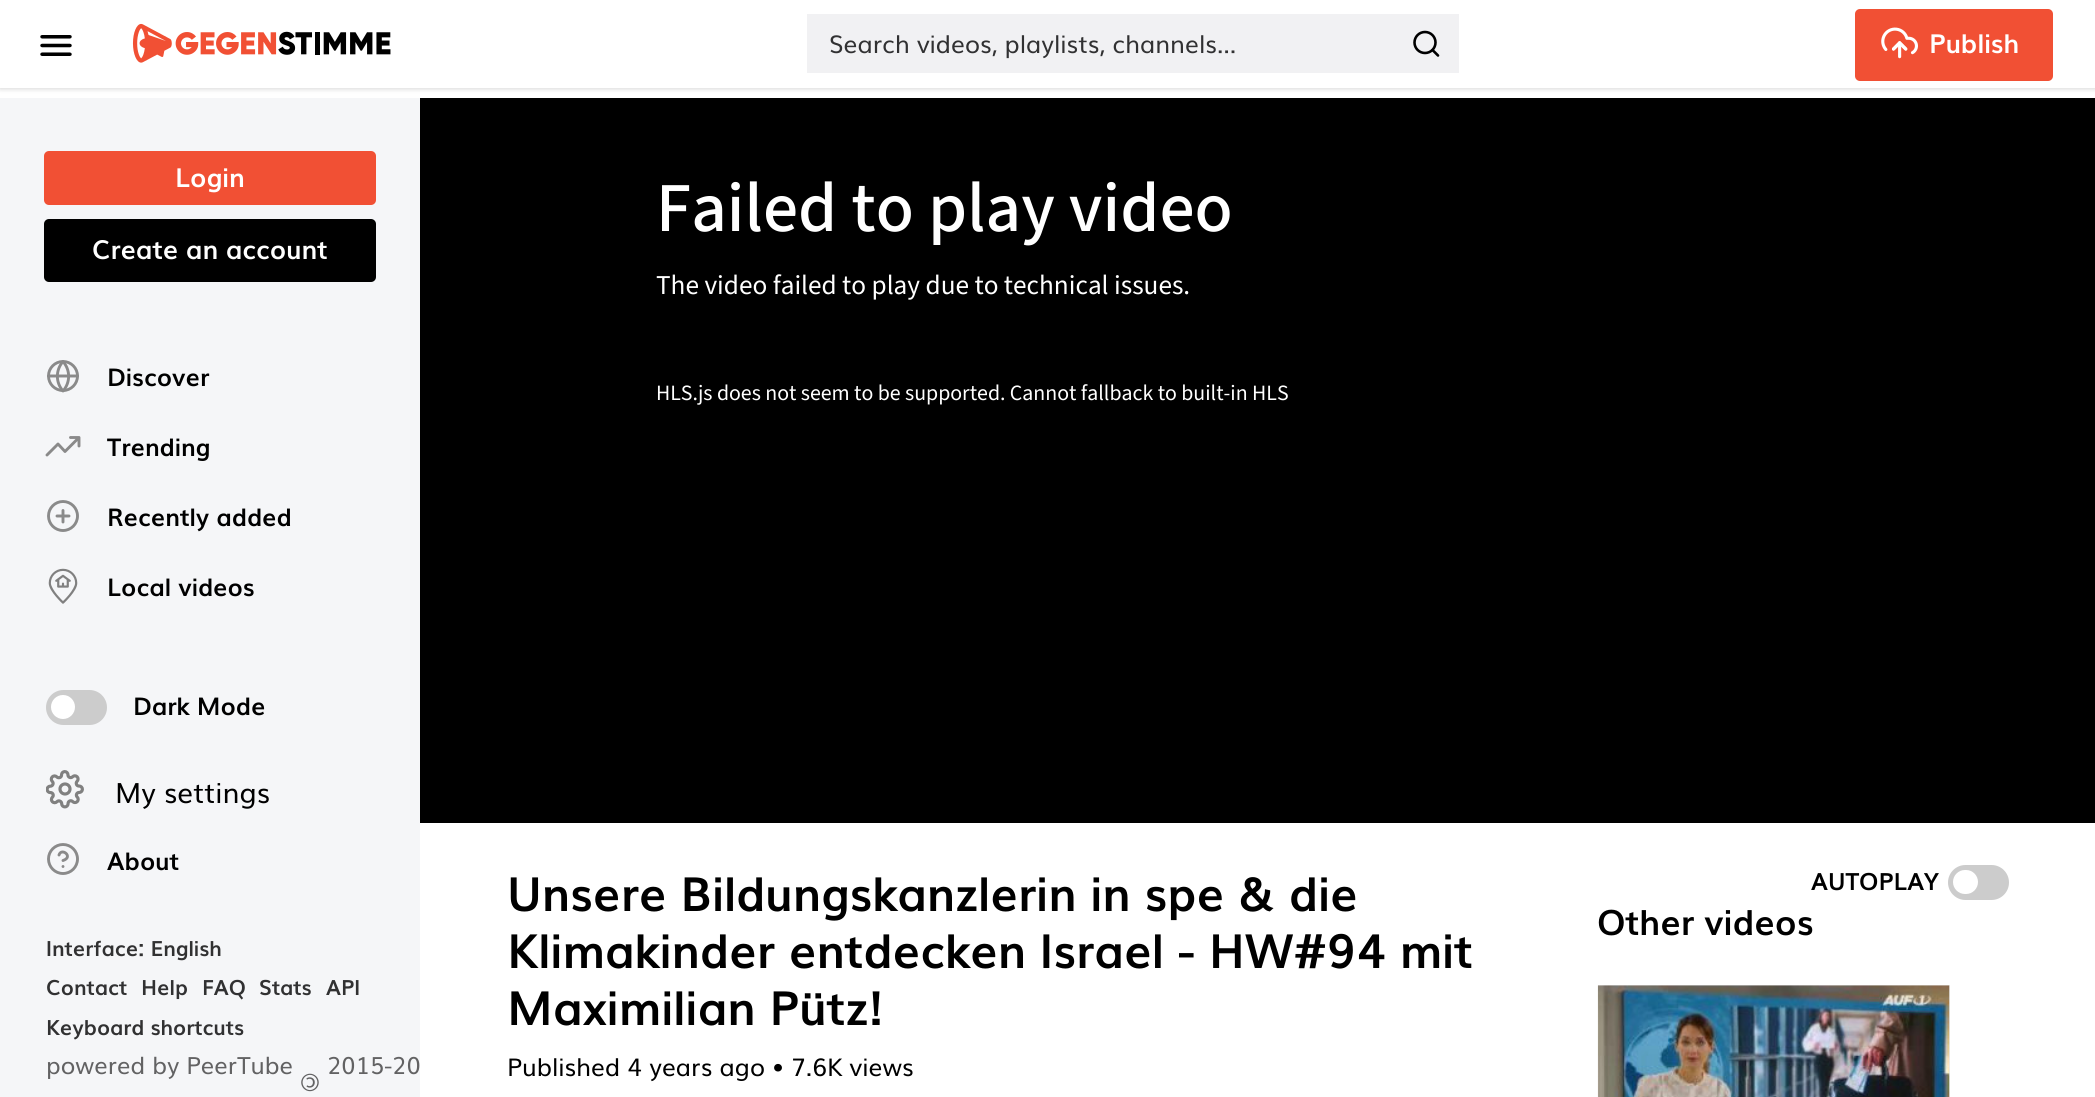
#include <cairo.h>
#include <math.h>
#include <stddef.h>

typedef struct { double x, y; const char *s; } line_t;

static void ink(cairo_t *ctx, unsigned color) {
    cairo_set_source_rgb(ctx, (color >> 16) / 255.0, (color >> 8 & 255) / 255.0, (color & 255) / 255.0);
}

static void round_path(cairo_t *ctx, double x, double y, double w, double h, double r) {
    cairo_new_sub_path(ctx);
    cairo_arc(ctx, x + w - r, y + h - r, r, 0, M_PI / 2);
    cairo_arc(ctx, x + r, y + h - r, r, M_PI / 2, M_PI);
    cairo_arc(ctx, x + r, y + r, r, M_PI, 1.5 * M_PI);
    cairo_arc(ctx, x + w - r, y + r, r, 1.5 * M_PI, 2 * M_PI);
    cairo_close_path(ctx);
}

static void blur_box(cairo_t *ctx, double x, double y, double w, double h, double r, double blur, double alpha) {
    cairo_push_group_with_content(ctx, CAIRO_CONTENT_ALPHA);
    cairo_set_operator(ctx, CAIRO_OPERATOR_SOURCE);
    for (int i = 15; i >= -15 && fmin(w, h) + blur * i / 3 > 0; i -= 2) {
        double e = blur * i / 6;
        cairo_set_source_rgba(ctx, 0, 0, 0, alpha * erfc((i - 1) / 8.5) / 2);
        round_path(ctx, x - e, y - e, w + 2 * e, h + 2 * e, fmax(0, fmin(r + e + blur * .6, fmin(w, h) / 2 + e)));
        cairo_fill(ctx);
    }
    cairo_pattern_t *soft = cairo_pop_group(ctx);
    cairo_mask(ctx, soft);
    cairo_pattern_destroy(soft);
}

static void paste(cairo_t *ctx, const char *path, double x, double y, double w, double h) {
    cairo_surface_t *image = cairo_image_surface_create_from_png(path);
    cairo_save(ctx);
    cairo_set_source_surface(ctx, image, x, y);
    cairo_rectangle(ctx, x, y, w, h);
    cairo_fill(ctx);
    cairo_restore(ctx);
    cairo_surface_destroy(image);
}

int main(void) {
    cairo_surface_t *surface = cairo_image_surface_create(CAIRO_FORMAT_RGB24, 2095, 1097);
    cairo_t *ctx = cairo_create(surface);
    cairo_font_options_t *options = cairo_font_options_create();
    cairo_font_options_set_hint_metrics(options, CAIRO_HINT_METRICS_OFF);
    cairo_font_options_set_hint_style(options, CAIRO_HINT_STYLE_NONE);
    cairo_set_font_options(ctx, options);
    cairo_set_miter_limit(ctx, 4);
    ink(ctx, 0xFFFFFF);
    cairo_paint(ctx);
    ink(ctx, 0x000000);
    blur_box(ctx, 0, 2, 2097, 87, 0, 2.5, 0.16);
    ink(ctx, 0xFFFFFF);
    cairo_rectangle(ctx, 0, 0, 2095, 88);
    cairo_fill(ctx);
    paste(ctx, "media/1.png", 40, 35, 32, 21);
    paste(ctx, "media/2.png", 132, 23, 259, 40);
    ink(ctx, 0xF1F1F3);
    cairo_rectangle(ctx, 807, 14, 652, 59);
    cairo_fill(ctx);
    cairo_select_font_face(ctx, "Muli", CAIRO_FONT_SLANT_NORMAL, CAIRO_FONT_WEIGHT_NORMAL);
    cairo_set_font_size(ctx, 24.5);
    ink(ctx, 0x313132);
    cairo_move_to(ctx, 829, 53);
    cairo_show_text(ctx, "Search videos, playlists, channels…");
    cairo_new_path(ctx);
    cairo_arc(ctx, 1425, 42.5, 10.5, 0, 2 * M_PI);
    ink(ctx, 0x000000);
    cairo_set_line_width(ctx, 2.6);
    cairo_stroke(ctx);
    cairo_new_path(ctx);
    cairo_move_to(ctx, 1438, 55.5);
    cairo_line_to(ctx, 1432.5, 50);
    cairo_set_line_cap(ctx, CAIRO_LINE_CAP_ROUND);
    cairo_set_line_join(ctx, CAIRO_LINE_JOIN_ROUND);
    cairo_stroke(ctx);
    ink(ctx, 0xF15034);
    round_path(ctx, 1855, 9, 198, 72, 5);
    cairo_fill(ctx);
    paste(ctx, "media/3.png", 1881, 27, 37, 32);
    cairo_select_font_face(ctx, "Muli", CAIRO_FONT_SLANT_NORMAL, CAIRO_FONT_WEIGHT_BOLD);
    cairo_set_font_size(ctx, 26.25);
    ink(ctx, 0xFFFFFF);
    cairo_move_to(ctx, 1929, 53);
    cairo_show_text(ctx, "Publish");
    ink(ctx, 0xF5F6F8);
    cairo_rectangle(ctx, 0, 98, 420, 999);
    cairo_fill(ctx);
    ink(ctx, 0xF15034);
    round_path(ctx, 44, 151, 332, 54, 5);
    cairo_fill(ctx);
    ink(ctx, 0xFFFFFF);
    cairo_move_to(ctx, 175, 187);
    cairo_show_text(ctx, "Login");
    ink(ctx, 0x000000);
    round_path(ctx, 44, 219, 332, 63, 5);
    cairo_fill(ctx);
    ink(ctx, 0xFFFFFF);
    cairo_move_to(ctx, 92, 259);
    cairo_show_text(ctx, "Create an account");
    cairo_new_path(ctx);
    cairo_arc(ctx, 63, 376, 14.5, 0, 2 * M_PI);
    ink(ctx, 0x8A8A8A);
    cairo_set_line_width(ctx, 2.9);
    cairo_set_line_cap(ctx, CAIRO_LINE_CAP_BUTT);
    cairo_set_line_join(ctx, CAIRO_LINE_JOIN_MITER);
    cairo_stroke(ctx);
    cairo_new_path(ctx);
    cairo_move_to(ctx, 48.5, 376);
    cairo_line_to(ctx, 77.5, 376);
    cairo_move_to(ctx, 63, 361.5);
    cairo_curve_to(ctx, 70.5, 370, 70.5, 382.5, 63, 391);
    cairo_curve_to(ctx, 55.5, 382.5, 55.5, 370, 63, 361.5);
    cairo_close_path(ctx);
    cairo_set_line_cap(ctx, CAIRO_LINE_CAP_ROUND);
    cairo_set_line_join(ctx, CAIRO_LINE_JOIN_ROUND);
    cairo_stroke(ctx);
    cairo_set_font_size(ctx, 24.5);
    ink(ctx, 0x000000);
    cairo_move_to(ctx, 107, 386);
    cairo_show_text(ctx, "Discover");
    cairo_new_path(ctx);
    cairo_move_to(ctx, 79, 437.5);
    cairo_line_to(ctx, 65, 451.5);
    cairo_line_to(ctx, 58, 444);
    cairo_line_to(ctx, 47, 455);
    cairo_move_to(ctx, 70.5, 437.5);
    cairo_line_to(ctx, 79, 437.5);
    cairo_line_to(ctx, 79, 446);
    ink(ctx, 0x8A8A8A);
    cairo_stroke(ctx);
    ink(ctx, 0x000000);
    cairo_move_to(ctx, 107, 456);
    cairo_show_text(ctx, "Trending");
    cairo_new_path(ctx);
    cairo_arc(ctx, 63, 516, 14.5, 0, 2 * M_PI);
    ink(ctx, 0x8A8A8A);
    cairo_set_line_cap(ctx, CAIRO_LINE_CAP_BUTT);
    cairo_set_line_join(ctx, CAIRO_LINE_JOIN_MITER);
    cairo_stroke(ctx);
    cairo_new_path(ctx);
    cairo_move_to(ctx, 63, 510.5);
    cairo_line_to(ctx, 63, 522);
    cairo_move_to(ctx, 57, 516);
    cairo_line_to(ctx, 69, 516);
    cairo_set_line_cap(ctx, CAIRO_LINE_CAP_ROUND);
    cairo_set_line_join(ctx, CAIRO_LINE_JOIN_ROUND);
    cairo_stroke(ctx);
    ink(ctx, 0x000000);
    cairo_move_to(ctx, 107, 526);
    cairo_show_text(ctx, "Recently added");
    paste(ctx, "media/4.png", 48, 568, 30, 36);
    cairo_move_to(ctx, 107, 596);
    cairo_show_text(ctx, "Local videos");
    ink(ctx, 0xCCCCCC);
    round_path(ctx, 46, 690, 61, 35, 17.5);
    cairo_fill(ctx);
    ink(ctx, 0xFFFFFF);
    cairo_arc(ctx, 63, 707, 12, 0, 2 * M_PI);
    cairo_fill(ctx);
    ink(ctx, 0x000000);
    cairo_move_to(ctx, 133, 715);
    cairo_show_text(ctx, "Dark Mode");
    paste(ctx, "media/5.png", 46, 770, 38, 39);
    cairo_select_font_face(ctx, "Muli", CAIRO_FONT_SLANT_NORMAL, CAIRO_FONT_WEIGHT_NORMAL);
    cairo_set_font_size(ctx, 28);
    cairo_move_to(ctx, 115, 803);
    cairo_show_text(ctx, "My settings");
    cairo_new_path(ctx);
    cairo_arc(ctx, 63, 859, 14.5, 0, 2 * M_PI);
    ink(ctx, 0x8A8A8A);
    cairo_set_line_cap(ctx, CAIRO_LINE_CAP_BUTT);
    cairo_set_line_join(ctx, CAIRO_LINE_JOIN_MITER);
    cairo_stroke(ctx);
    cairo_new_path(ctx);
    cairo_move_to(ctx, 59, 855);
    cairo_curve_to(ctx, 61.5, 847, 74, 857, 63, 860.5);
    cairo_move_to(ctx, 63, 866.5);
    cairo_line_to(ctx, 63, 866.5);
    cairo_set_line_cap(ctx, CAIRO_LINE_CAP_ROUND);
    cairo_set_line_join(ctx, CAIRO_LINE_JOIN_ROUND);
    cairo_stroke(ctx);
    cairo_select_font_face(ctx, "Muli", CAIRO_FONT_SLANT_NORMAL, CAIRO_FONT_WEIGHT_BOLD);
    cairo_set_font_size(ctx, 24.5);
    ink(ctx, 0x000000);
    cairo_move_to(ctx, 107, 870);
    cairo_show_text(ctx, "About");
    cairo_set_font_size(ctx, 21);
    ink(ctx, 0x313132);
    {
        static const line_t items[] = {
            {46, 956, "Interface: English"},
            {46, 995, "Contact"},
            {141, 995, "Help"},
            {202, 995, "FAQ"},
            {259, 995, "Stats"},
            {326, 995, "API"},
            {46, 1035, "Keyboard shortcuts"},
        };
        for (size_t i = 0; i < sizeof items / sizeof *items; i++) {
            cairo_move_to(ctx, items[i].x, items[i].y);
            cairo_show_text(ctx, items[i].s);
        }
    }
    cairo_select_font_face(ctx, "Muli", CAIRO_FONT_SLANT_NORMAL, CAIRO_FONT_WEIGHT_NORMAL);
    cairo_set_font_size(ctx, 23.75);
    ink(ctx, 0x626263);
    cairo_move_to(ctx, 46, 1074);
    cairo_show_text(ctx, "powered by PeerTube");
    cairo_move_to(ctx, 327, 1074);
    cairo_show_text(ctx, "2015-20");
    cairo_save(ctx);
    cairo_translate(ctx, 320, 1074);
    cairo_rotate(ctx, 180 * M_PI / 180);
    cairo_move_to(ctx, 0, 0);
    cairo_show_text(ctx, "©");
    cairo_restore(ctx);
    ink(ctx, 0x000000);
    cairo_rectangle(ctx, 420, 98, 1675, 725);
    cairo_fill(ctx);
    cairo_select_font_face(ctx, "Source Sans 3 Medium", CAIRO_FONT_SLANT_NORMAL, CAIRO_FONT_WEIGHT_NORMAL);
    cairo_set_font_size(ctx, 70);
    ink(ctx, 0xFFFFFF);
    cairo_move_to(ctx, 656, 231);
    cairo_show_text(ctx, "Failed to play video");
    cairo_select_font_face(ctx, "Source Sans 3", CAIRO_FONT_SLANT_NORMAL, CAIRO_FONT_WEIGHT_NORMAL);
    cairo_set_font_size(ctx, 27.25);
    cairo_move_to(ctx, 656, 294);
    cairo_show_text(ctx, "The video failed to play due to technical issues.");
    cairo_set_font_size(ctx, 21.85);
    cairo_move_to(ctx, 656, 400);
    cairo_show_text(ctx, "HLS.js does not seem to be supported. Cannot fallback to built-in HLS");
    cairo_select_font_face(ctx, "Muli", CAIRO_FONT_SLANT_NORMAL, CAIRO_FONT_WEIGHT_BOLD);
    cairo_set_font_size(ctx, 47.25);
    ink(ctx, 0x000000);
    {
        static const line_t items[] = {
            {507, 911, "Unsere Bildungskanzlerin in spe & die"},
            {507, 968, "Klimakinder entdecken Israel - HW#94 mit"},
            {507, 1025, "Maximilian Pütz!"},
        };
        for (size_t i = 0; i < sizeof items / sizeof *items; i++) {
            cairo_move_to(ctx, items[i].x, items[i].y);
            cairo_show_text(ctx, items[i].s);
        }
    }
    cairo_select_font_face(ctx, "Muli", CAIRO_FONT_SLANT_NORMAL, CAIRO_FONT_WEIGHT_NORMAL);
    cairo_set_font_size(ctx, 24.5);
    cairo_move_to(ctx, 507, 1076);
    cairo_show_text(ctx, "Published 4 years ago • 7.6K views");
    cairo_select_font_face(ctx, "Muli", CAIRO_FONT_SLANT_NORMAL, CAIRO_FONT_WEIGHT_BOLD);
    cairo_set_font_size(ctx, 23.75);
    cairo_move_to(ctx, 1811, 890);
    cairo_show_text(ctx, "AUTOPLAY");
    ink(ctx, 0xCCCCCC);
    round_path(ctx, 1948, 865, 61, 35, 17.5);
    cairo_fill(ctx);
    ink(ctx, 0xFFFFFF);
    round_path(ctx, 1953, 870, 25, 24, 12);
    cairo_fill(ctx);
    cairo_set_font_size(ctx, 35);
    ink(ctx, 0x000000);
    cairo_move_to(ctx, 1597, 935);
    cairo_show_text(ctx, "Other videos");
    ink(ctx, 0xECECEC);
    cairo_rectangle(ctx, 1598, 985, 352, 112);
    cairo_fill(ctx);
    paste(ctx, "media/6.png", 1597, 985, 353, 112);
    cairo_surface_write_to_png(surface, "image.png");
    cairo_font_options_destroy(options);
    cairo_destroy(ctx);
    cairo_surface_destroy(surface);
    return 0;
}
